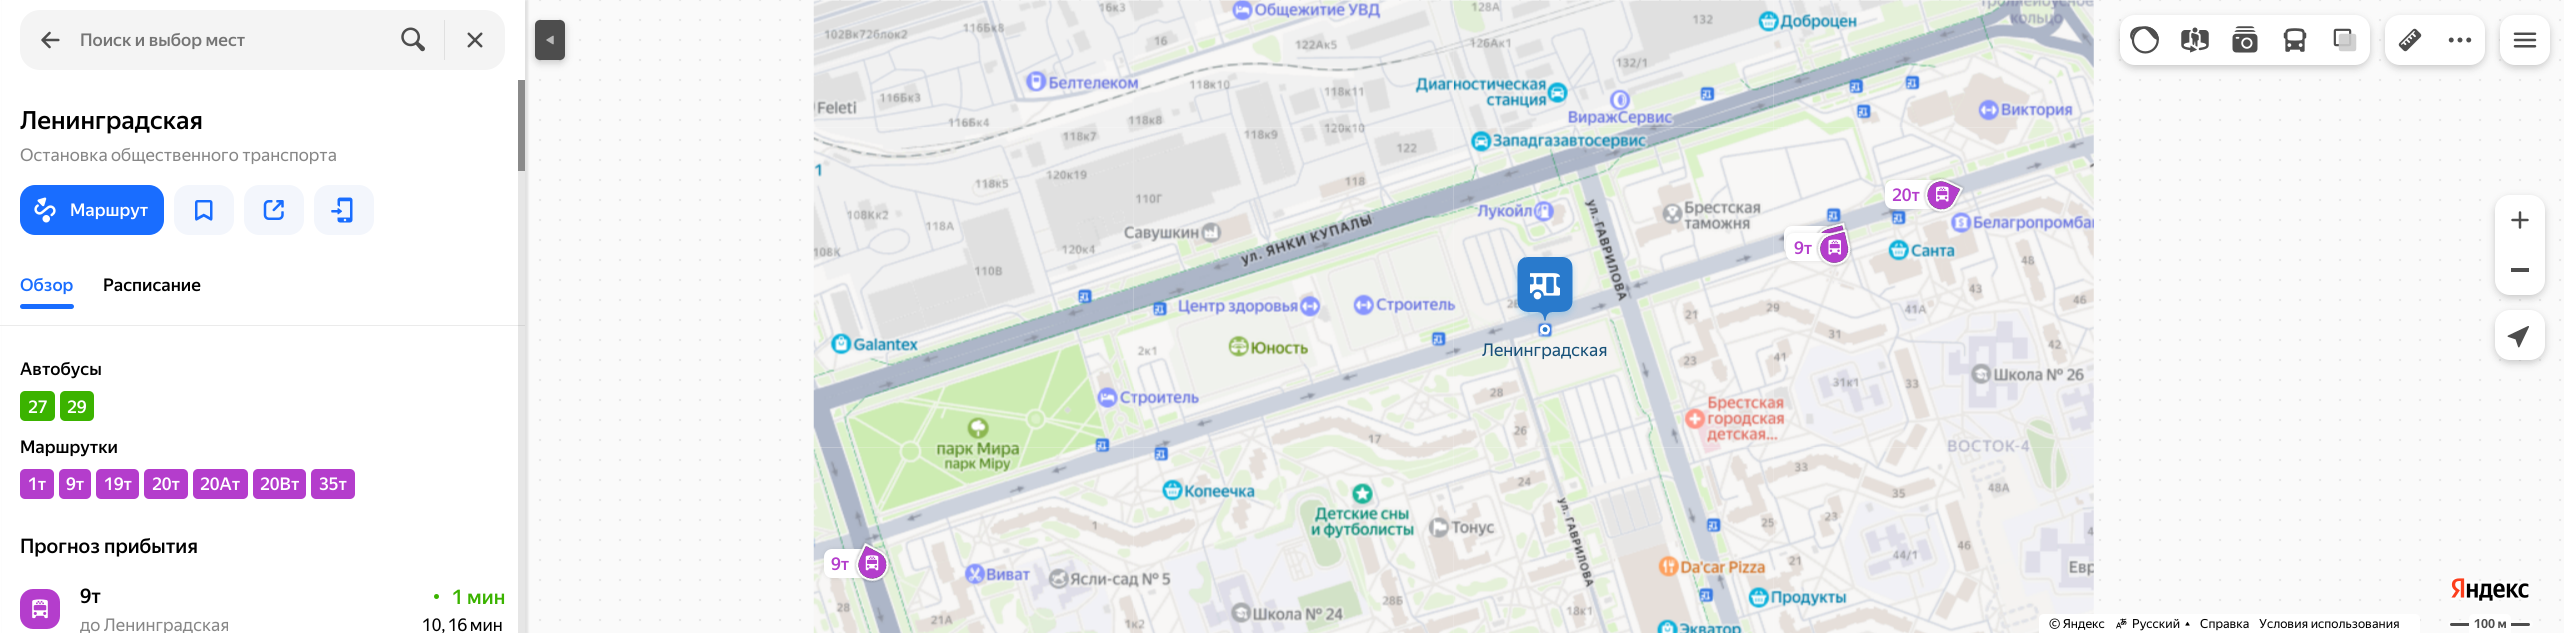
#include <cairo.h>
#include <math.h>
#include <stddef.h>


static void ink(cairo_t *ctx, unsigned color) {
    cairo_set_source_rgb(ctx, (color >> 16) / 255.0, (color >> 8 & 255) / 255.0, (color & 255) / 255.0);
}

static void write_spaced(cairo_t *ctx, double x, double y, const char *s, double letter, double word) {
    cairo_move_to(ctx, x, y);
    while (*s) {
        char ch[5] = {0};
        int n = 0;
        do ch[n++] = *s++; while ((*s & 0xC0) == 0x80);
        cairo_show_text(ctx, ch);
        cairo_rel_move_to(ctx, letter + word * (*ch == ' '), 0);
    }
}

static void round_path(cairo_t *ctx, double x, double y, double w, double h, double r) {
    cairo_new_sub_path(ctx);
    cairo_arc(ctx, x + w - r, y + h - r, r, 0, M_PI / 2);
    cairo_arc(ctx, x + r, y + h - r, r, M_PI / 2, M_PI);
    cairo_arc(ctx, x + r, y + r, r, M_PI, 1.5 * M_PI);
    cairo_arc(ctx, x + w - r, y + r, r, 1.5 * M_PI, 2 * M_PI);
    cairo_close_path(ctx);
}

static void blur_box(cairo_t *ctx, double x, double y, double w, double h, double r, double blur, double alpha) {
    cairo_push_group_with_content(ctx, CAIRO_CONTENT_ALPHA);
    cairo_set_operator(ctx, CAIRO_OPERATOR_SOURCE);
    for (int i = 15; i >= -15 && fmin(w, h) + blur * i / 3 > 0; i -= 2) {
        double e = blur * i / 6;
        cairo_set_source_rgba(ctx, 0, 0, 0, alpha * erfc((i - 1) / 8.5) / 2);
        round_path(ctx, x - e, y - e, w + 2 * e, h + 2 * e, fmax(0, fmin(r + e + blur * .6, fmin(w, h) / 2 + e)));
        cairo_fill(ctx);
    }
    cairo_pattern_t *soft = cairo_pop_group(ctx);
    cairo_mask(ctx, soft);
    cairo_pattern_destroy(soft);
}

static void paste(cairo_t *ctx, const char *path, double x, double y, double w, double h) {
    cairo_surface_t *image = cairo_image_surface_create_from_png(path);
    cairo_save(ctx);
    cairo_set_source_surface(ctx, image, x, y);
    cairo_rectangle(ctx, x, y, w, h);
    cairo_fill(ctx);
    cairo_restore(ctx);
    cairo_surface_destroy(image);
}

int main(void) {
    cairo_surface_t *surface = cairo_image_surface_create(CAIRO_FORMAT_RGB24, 2564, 633);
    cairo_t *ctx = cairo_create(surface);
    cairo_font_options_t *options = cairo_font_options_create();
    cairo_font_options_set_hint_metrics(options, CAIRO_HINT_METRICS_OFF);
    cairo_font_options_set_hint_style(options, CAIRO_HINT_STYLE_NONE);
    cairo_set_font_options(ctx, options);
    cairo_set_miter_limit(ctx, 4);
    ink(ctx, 0xFFFFFF);
    cairo_paint(ctx);
    paste(ctx, "media/1.png", 525, 0, 2039, 633);
    ink(ctx, 0x000000);
    blur_box(ctx, 3, 0, 525, 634, 0, 1, 0.1);
    blur_box(ctx, 535, 23, 30, 40, 5, 4, 0.2);
    ink(ctx, 0xFFFFFF);
    cairo_rectangle(ctx, 2, 0, 523, 633);
    cairo_fill(ctx);
    ink(ctx, 0xF4F4F4);
    round_path(ctx, 20, 10, 485, 60, 20);
    cairo_fill(ctx);
    paste(ctx, "media/2.png", 41, 31, 19, 18);
    cairo_select_font_face(ctx, "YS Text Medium", CAIRO_FONT_SLANT_NORMAL, CAIRO_FONT_WEIGHT_NORMAL);
    cairo_set_font_size(ctx, 17.5);
    ink(ctx, 0x757575);
    cairo_move_to(ctx, 80, 46);
    cairo_show_text(ctx, "Поиск и выбор мест");
    paste(ctx, "media/3.png", 401, 27, 24, 25);
    ink(ctx, 0xE0E0E0);
    cairo_rectangle(ctx, 444, 20, 1, 40);
    cairo_fill(ctx);
    paste(ctx, "media/4.png", 467, 32, 16, 16);
    ink(ctx, 0x000000);
    blur_box(ctx, 2120, 18, 250, 50, 15, 4, 0.2);
    ink(ctx, 0xFFFFFF);
    cairo_new_path(ctx);
    cairo_move_to(ctx, 2135, 15);
    cairo_line_to(ctx, 2170, 15);
    cairo_line_to(ctx, 2170, 65);
    cairo_line_to(ctx, 2135, 65);
    cairo_curve_to(ctx, 2126.5, 65, 2120, 58.5, 2120, 50);
    cairo_line_to(ctx, 2120, 30);
    cairo_curve_to(ctx, 2120, 21.5, 2126.5, 15, 2135, 15);
    cairo_close_path(ctx);
    cairo_fill(ctx);
    paste(ctx, "media/5.png", 2130, 26, 29, 28);
    cairo_rectangle(ctx, 2170, 15, 150, 50);
    cairo_fill(ctx);
    paste(ctx, "media/6.png", 2181, 27, 28, 26);
    cairo_new_path(ctx);
    cairo_move_to(ctx, 2320, 15);
    cairo_line_to(ctx, 2355, 15);
    cairo_curve_to(ctx, 2363.5, 15, 2370, 21.5, 2370, 30);
    cairo_line_to(ctx, 2370, 50);
    cairo_curve_to(ctx, 2370, 58.5, 2363.5, 65, 2355, 65);
    cairo_line_to(ctx, 2320, 65);
    cairo_close_path(ctx);
    cairo_fill(ctx);
    paste(ctx, "media/7.png", 2333, 28, 24, 24);
    paste(ctx, "media/8.png", 2232, 26, 26, 27);
    paste(ctx, "media/9.png", 2283, 28, 24, 24);
    ink(ctx, 0x000000);
    blur_box(ctx, 2385, 18, 100, 50, 15, 4, 0.2);
    ink(ctx, 0xFFFFFF);
    cairo_new_path(ctx);
    cairo_move_to(ctx, 2400, 15);
    cairo_line_to(ctx, 2435, 15);
    cairo_line_to(ctx, 2435, 65);
    cairo_line_to(ctx, 2400, 65);
    cairo_curve_to(ctx, 2391.5, 65, 2385, 58.5, 2385, 50);
    cairo_line_to(ctx, 2385, 30);
    cairo_curve_to(ctx, 2385, 21.5, 2391.5, 15, 2400, 15);
    cairo_close_path(ctx);
    cairo_fill(ctx);
    paste(ctx, "media/10.png", 2398, 28, 24, 24);
    cairo_new_path(ctx);
    cairo_move_to(ctx, 2435, 15);
    cairo_line_to(ctx, 2470, 15);
    cairo_curve_to(ctx, 2478.5, 15, 2485, 21.5, 2485, 30);
    cairo_line_to(ctx, 2485, 50);
    cairo_curve_to(ctx, 2485, 58.5, 2478.5, 65, 2470, 65);
    cairo_line_to(ctx, 2435, 65);
    cairo_close_path(ctx);
    cairo_fill(ctx);
    paste(ctx, "media/11.png", 2448, 37, 24, 6);
    ink(ctx, 0x000000);
    blur_box(ctx, 2500, 18, 50, 50, 15, 4, 0.2);
    ink(ctx, 0xFFFFFF);
    round_path(ctx, 2500, 15, 50, 50, 15);
    cairo_fill(ctx);
    paste(ctx, "media/12.png", 2513, 32, 24, 16);
    ink(ctx, 0x000000);
    blur_box(ctx, 2495, 198, 50, 100, 15, 4, 0.2);
    ink(ctx, 0xFFFFFF);
    cairo_new_path(ctx);
    cairo_move_to(ctx, 2510, 195);
    cairo_line_to(ctx, 2530, 195);
    cairo_curve_to(ctx, 2538.5, 195, 2545, 201.5, 2545, 210);
    cairo_line_to(ctx, 2545, 245);
    cairo_line_to(ctx, 2495, 245);
    cairo_line_to(ctx, 2495, 210);
    cairo_curve_to(ctx, 2495, 201.5, 2501.5, 195, 2510, 195);
    cairo_close_path(ctx);
    cairo_fill(ctx);
    paste(ctx, "media/13.png", 2511, 211, 18, 18);
    cairo_new_path(ctx);
    cairo_move_to(ctx, 2495, 245);
    cairo_line_to(ctx, 2545, 245);
    cairo_line_to(ctx, 2545, 280);
    cairo_curve_to(ctx, 2545, 288.5, 2538.5, 295, 2530, 295);
    cairo_line_to(ctx, 2510, 295);
    cairo_curve_to(ctx, 2501.5, 295, 2495, 288.5, 2495, 280);
    cairo_close_path(ctx);
    cairo_fill(ctx);
    ink(ctx, 0x4D4D4D);
    cairo_rectangle(ctx, 2511, 268, 18, 4);
    cairo_fill(ctx);
    ink(ctx, 0x000000);
    blur_box(ctx, 2495, 313, 50, 50, 15, 4, 0.2);
    ink(ctx, 0xFFFFFF);
    round_path(ctx, 2495, 310, 50, 50, 15);
    cairo_fill(ctx);
    paste(ctx, "media/14.png", 2507, 326, 22, 22);
    ink(ctx, 0x4D4D4D);
    round_path(ctx, 535, 20, 30, 40, 5);
    cairo_fill(ctx);
    paste(ctx, "media/15.png", 546, 35, 8, 10);
    cairo_set_font_size(ctx, 25);
    ink(ctx, 0x000000);
    cairo_move_to(ctx, 20, 129);
    cairo_show_text(ctx, "Ленинградская");
    cairo_select_font_face(ctx, "YS Text", CAIRO_FONT_SLANT_NORMAL, CAIRO_FONT_WEIGHT_NORMAL);
    cairo_set_font_size(ctx, 17.5);
    ink(ctx, 0x878787);
    cairo_move_to(ctx, 20, 161);
    cairo_show_text(ctx, "Остановка общественного транспорта");
    ink(ctx, 0x196DFF);
    round_path(ctx, 20, 185, 144, 50, 15);
    cairo_fill(ctx);
    paste(ctx, "media/16.png", 34, 197, 22, 26);
    cairo_select_font_face(ctx, "YS Text Medium", CAIRO_FONT_SLANT_NORMAL, CAIRO_FONT_WEIGHT_NORMAL);
    ink(ctx, 0xFFFFFF);
    cairo_move_to(ctx, 70, 216);
    cairo_show_text(ctx, "Маршрут");
    ink(ctx, 0xF3F6FC);
    round_path(ctx, 174, 185, 60, 50, 15);
    cairo_fill(ctx);
    paste(ctx, "media/17.png", 195, 200, 18, 21);
    round_path(ctx, 244, 185, 60, 50, 15);
    cairo_fill(ctx);
    paste(ctx, "media/18.png", 263, 200, 21, 20);
    round_path(ctx, 314, 185, 60, 50, 15);
    cairo_fill(ctx);
    paste(ctx, "media/19.png", 331, 197, 22, 26);
    ink(ctx, 0x196DFF);
    cairo_move_to(ctx, 20, 291);
    cairo_show_text(ctx, "Обзор");
    ink(ctx, 0x000000);
    cairo_move_to(ctx, 103, 291);
    cairo_show_text(ctx, "Расписание");
    ink(ctx, 0x196DFF);
    round_path(ctx, 20, 304, 54, 5, 2.5);
    cairo_fill(ctx);
    ink(ctx, 0xEBEBEB);
    cairo_rectangle(ctx, 0, 325, 525, 1);
    cairo_fill(ctx);
    ink(ctx, 0x000000);
    cairo_move_to(ctx, 20, 375);
    cairo_show_text(ctx, "Автобусы");
    ink(ctx, 0x3BB300);
    round_path(ctx, 20, 391, 35, 30, 5);
    cairo_fill(ctx);
    ink(ctx, 0xFFFFFF);
    cairo_move_to(ctx, 28, 413);
    cairo_show_text(ctx, "27");
    ink(ctx, 0x3BB300);
    round_path(ctx, 60, 391, 34, 30, 5);
    cairo_fill(ctx);
    ink(ctx, 0xFFFFFF);
    cairo_move_to(ctx, 67, 413);
    cairo_show_text(ctx, "29");
    ink(ctx, 0x000000);
    cairo_move_to(ctx, 20, 453);
    cairo_show_text(ctx, "Маршрутки");
    ink(ctx, 0xB43DCC);
    round_path(ctx, 20, 469, 34, 30, 5);
    cairo_fill(ctx);
    ink(ctx, 0xFFFFFF);
    cairo_move_to(ctx, 28, 490);
    cairo_show_text(ctx, "1т");
    ink(ctx, 0xB43DCC);
    round_path(ctx, 59, 469, 32, 30, 5);
    cairo_fill(ctx);
    ink(ctx, 0xFFFFFF);
    cairo_move_to(ctx, 66, 490);
    cairo_show_text(ctx, "9т");
    ink(ctx, 0xB43DCC);
    round_path(ctx, 96, 469, 43, 30, 5);
    cairo_fill(ctx);
    ink(ctx, 0xFFFFFF);
    cairo_move_to(ctx, 104, 490);
    cairo_show_text(ctx, "19т");
    ink(ctx, 0xB43DCC);
    round_path(ctx, 144, 469, 44, 30, 5);
    cairo_fill(ctx);
    ink(ctx, 0xFFFFFF);
    cairo_move_to(ctx, 152, 490);
    cairo_show_text(ctx, "20т");
    ink(ctx, 0xB43DCC);
    round_path(ctx, 193, 469, 55, 30, 5);
    cairo_fill(ctx);
    ink(ctx, 0xFFFFFF);
    cairo_move_to(ctx, 200, 490);
    cairo_show_text(ctx, "20Ат");
    ink(ctx, 0xB43DCC);
    round_path(ctx, 253, 469, 53, 30, 5);
    cairo_fill(ctx);
    ink(ctx, 0xFFFFFF);
    cairo_move_to(ctx, 260, 490);
    cairo_show_text(ctx, "20Вт");
    ink(ctx, 0xB43DCC);
    round_path(ctx, 311, 469, 44, 30, 5);
    cairo_fill(ctx);
    ink(ctx, 0xFFFFFF);
    cairo_move_to(ctx, 319, 490);
    cairo_show_text(ctx, "35т");
    cairo_set_font_size(ctx, 20);
    ink(ctx, 0x000000);
    cairo_move_to(ctx, 20, 553);
    cairo_show_text(ctx, "Прогноз прибытия");
    ink(ctx, 0xB43DCC);
    round_path(ctx, 20, 589, 40, 40, 13);
    cairo_fill(ctx);
    paste(ctx, "media/20.png", 32, 599, 16, 20);
    ink(ctx, 0x000000);
    cairo_move_to(ctx, 80, 603);
    cairo_show_text(ctx, "9т");
    cairo_select_font_face(ctx, "YS Text", CAIRO_FONT_SLANT_NORMAL, CAIRO_FONT_WEIGHT_NORMAL);
    cairo_set_font_size(ctx, 17.5);
    ink(ctx, 0x878787);
    cairo_move_to(ctx, 80, 631);
    cairo_show_text(ctx, "до Ленинградская");
    ink(ctx, 0x3BB300);
    cairo_new_path(ctx);
    cairo_arc(ctx, 436.5, 596.5, 2.5, 0, 2 * M_PI);
    cairo_fill(ctx);
    cairo_select_font_face(ctx, "YS Text Medium", CAIRO_FONT_SLANT_NORMAL, CAIRO_FONT_WEIGHT_NORMAL);
    cairo_set_font_size(ctx, 20);
    cairo_move_to(ctx, 452, 604);
    cairo_show_text(ctx, "1 мин");
    cairo_select_font_face(ctx, "YS Text", CAIRO_FONT_SLANT_NORMAL, CAIRO_FONT_WEIGHT_NORMAL);
    cairo_set_font_size(ctx, 17.5);
    ink(ctx, 0x000000);
    write_spaced(ctx, 422, 631, "10, 16 мин", 0, -1);
    ink(ctx, 0x8A8A8A);
    cairo_rectangle(ctx, 518, 80, 7, 91);
    cairo_fill(ctx);
    cairo_set_source_rgba(ctx, 0, 0, 0, 0.1);
    cairo_rectangle(ctx, 518, 171, 7, 462);
    cairo_fill(ctx);
    paste(ctx, "media/21.png", 2451, 578, 78, 24);
    paste(ctx, "media/26.png", 1453, 0, 321, 128);
    paste(ctx, "media/29.png", 1133, 127, 321, 321);
    paste(ctx, "media/30.png", 1453, 127, 321, 321);
    paste(ctx, "media/27.png", 1773, 0, 321, 128);
    paste(ctx, "media/34.png", 1453, 447, 321, 186);
    paste(ctx, "media/31.png", 1773, 127, 321, 321);
    paste(ctx, "media/35.png", 1773, 447, 321, 186);
    ink(ctx, 0xFFFFFF);
    cairo_new_path(ctx);
    cairo_move_to(ctx, 2044, 614);
    cairo_line_to(ctx, 2415, 614);
    cairo_curve_to(ctx, 2418, 614, 2420, 616, 2420, 619);
    cairo_line_to(ctx, 2420, 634);
    cairo_line_to(ctx, 2039, 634);
    cairo_line_to(ctx, 2039, 619);
    cairo_curve_to(ctx, 2039, 616, 2041, 614, 2044, 614);
    cairo_close_path(ctx);
    cairo_fill(ctx);
    cairo_set_font_size(ctx, 12.5);
    ink(ctx, 0x000000);
    cairo_move_to(ctx, 2049, 628);
    cairo_show_text(ctx, "© Яндекс");
    paste(ctx, "media/22.png", 2116, 618, 11, 11);
    cairo_move_to(ctx, 2132, 628);
    cairo_show_text(ctx, "Русский");
    paste(ctx, "media/23.png", 2185, 621, 5, 5);
    cairo_move_to(ctx, 2200, 628);
    cairo_show_text(ctx, "Справка");
    cairo_move_to(ctx, 2259, 628);
    cairo_show_text(ctx, "Условия использования");
    cairo_set_source_rgba(ctx, 1, 1, 1, 0.6);
    round_path(ctx, 2448, 620, 85, 8, 4);
    cairo_fill(ctx);
    ink(ctx, 0x4D4D4D);
    round_path(ctx, 2450, 623, 80, 3, 1.5);
    cairo_fill(ctx);
    ink(ctx, 0xFFFFFF);
    cairo_new_path(ctx);
    cairo_move_to(ctx, 2474, 614);
    cairo_line_to(ctx, 2506, 614);
    cairo_curve_to(ctx, 2509, 614, 2511, 616, 2511, 619);
    cairo_line_to(ctx, 2511, 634);
    cairo_line_to(ctx, 2469, 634);
    cairo_line_to(ctx, 2469, 619);
    cairo_curve_to(ctx, 2469, 616, 2471, 614, 2474, 614);
    cairo_close_path(ctx);
    cairo_fill(ctx);
    cairo_select_font_face(ctx, "YS Text", CAIRO_FONT_SLANT_NORMAL, CAIRO_FONT_WEIGHT_BOLD);
    ink(ctx, 0x4D4D4D);
    cairo_move_to(ctx, 2474, 628);
    cairo_show_text(ctx, "100 м");
    paste(ctx, "media/24.png", 813, 0, 321, 128);
    paste(ctx, "media/25.png", 1133, 0, 321, 128);
    paste(ctx, "media/28.png", 813, 127, 321, 321);
    paste(ctx, "media/32.png", 813, 447, 321, 186);
    paste(ctx, "media/33.png", 1133, 447, 321, 186);
    ink(ctx, 0x000000);
    blur_box(ctx, 1885, 180, 58, 29, 8, 2.5, 0.1);
    ink(ctx, 0xFFFFFF);
    round_path(ctx, 1885, 180, 58, 29, 8);
    cairo_fill(ctx);
    paste(ctx, "media/36.png", 1923, 177, 42, 37);
    cairo_select_font_face(ctx, "YS Text Medium", CAIRO_FONT_SLANT_NORMAL, CAIRO_FONT_WEIGHT_NORMAL);
    cairo_set_font_size(ctx, 17.5);
    ink(ctx, 0xB43DCC);
    cairo_move_to(ctx, 1892, 201);
    cairo_show_text(ctx, "20т");
    paste(ctx, "media/37.png", 1936, 186, 13, 16);
    ink(ctx, 0x000000);
    blur_box(ctx, 1784, 226, 49, 29, 8, 2.5, 0.1);
    ink(ctx, 0xFFFFFF);
    round_path(ctx, 1784, 226, 49, 29, 8);
    cairo_fill(ctx);
    paste(ctx, "media/38.png", 1816, 221, 34, 26);
    paste(ctx, "media/39.png", 1827, 232, 8, 3);
    ink(ctx, 0x000000);
    blur_box(ctx, 1786, 233, 49, 28, 8, 2.5, 0.1);
    ink(ctx, 0xFFFFFF);
    round_path(ctx, 1786, 233, 49, 28, 8);
    cairo_fill(ctx);
    paste(ctx, "media/40.png", 1816, 227, 37, 40);
    ink(ctx, 0xB43DCC);
    cairo_move_to(ctx, 1794, 254);
    cairo_show_text(ctx, "9т");
    paste(ctx, "media/41.png", 1828, 239, 13, 16);
    paste(ctx, "media/42.png", 1512, 254, 66, 81);
    paste(ctx, "media/43.png", 1530, 273, 30, 27);
    cairo_select_font_face(ctx, "YS Text", CAIRO_FONT_SLANT_NORMAL, CAIRO_FONT_WEIGHT_NORMAL);
    ink(ctx, 0x175078);
    cairo_move_to(ctx, 1482, 356);
    cairo_show_text(ctx, "Ленинградская");
    ink(ctx, 0x000000);
    blur_box(ctx, 824, 549, 49, 29, 8, 2.5, 0.1);
    ink(ctx, 0xFFFFFF);
    round_path(ctx, 824, 549, 49, 29, 8);
    cairo_fill(ctx);
    paste(ctx, "media/44.png", 854, 541, 37, 42);
    cairo_select_font_face(ctx, "YS Text Medium", CAIRO_FONT_SLANT_NORMAL, CAIRO_FONT_WEIGHT_NORMAL);
    ink(ctx, 0xB43DCC);
    cairo_move_to(ctx, 831, 570);
    cairo_show_text(ctx, "9т");
    paste(ctx, "media/45.png", 865, 555, 14, 16);
    cairo_surface_write_to_png(surface, "image.png");
    cairo_font_options_destroy(options);
    cairo_destroy(ctx);
    cairo_surface_destroy(surface);
    return 0;
}
